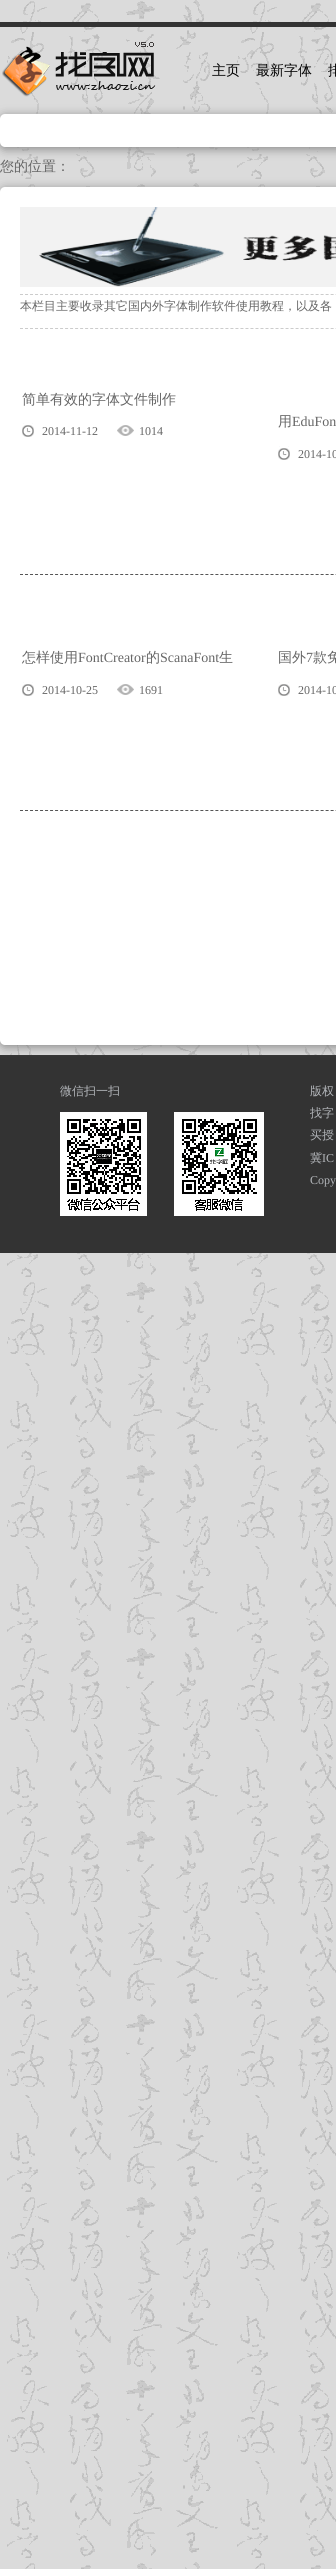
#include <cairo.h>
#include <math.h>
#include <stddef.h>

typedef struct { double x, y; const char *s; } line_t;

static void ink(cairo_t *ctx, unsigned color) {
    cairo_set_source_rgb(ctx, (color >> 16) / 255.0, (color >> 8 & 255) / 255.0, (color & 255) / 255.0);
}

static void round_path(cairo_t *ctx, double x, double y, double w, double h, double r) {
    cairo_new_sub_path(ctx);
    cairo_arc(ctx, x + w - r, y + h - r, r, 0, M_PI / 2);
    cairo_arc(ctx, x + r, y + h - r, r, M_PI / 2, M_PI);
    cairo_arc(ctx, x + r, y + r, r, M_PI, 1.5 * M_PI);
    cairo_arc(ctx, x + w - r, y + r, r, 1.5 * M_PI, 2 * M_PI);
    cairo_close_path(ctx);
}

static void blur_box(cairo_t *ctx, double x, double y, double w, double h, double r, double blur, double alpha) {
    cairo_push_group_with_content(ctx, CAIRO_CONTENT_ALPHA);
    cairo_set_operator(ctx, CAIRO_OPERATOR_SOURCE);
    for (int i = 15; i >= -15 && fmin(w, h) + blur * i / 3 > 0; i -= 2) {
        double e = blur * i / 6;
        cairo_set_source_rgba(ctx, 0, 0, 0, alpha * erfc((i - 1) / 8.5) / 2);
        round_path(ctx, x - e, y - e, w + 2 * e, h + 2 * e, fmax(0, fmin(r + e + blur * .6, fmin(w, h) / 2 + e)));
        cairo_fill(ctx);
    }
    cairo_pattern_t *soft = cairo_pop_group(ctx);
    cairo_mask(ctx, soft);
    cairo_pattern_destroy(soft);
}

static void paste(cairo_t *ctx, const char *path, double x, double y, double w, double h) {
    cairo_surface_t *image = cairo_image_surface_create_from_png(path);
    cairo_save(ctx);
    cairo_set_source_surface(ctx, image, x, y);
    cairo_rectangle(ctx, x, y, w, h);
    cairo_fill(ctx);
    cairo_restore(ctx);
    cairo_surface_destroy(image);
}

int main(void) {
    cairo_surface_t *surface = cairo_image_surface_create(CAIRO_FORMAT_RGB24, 336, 2569);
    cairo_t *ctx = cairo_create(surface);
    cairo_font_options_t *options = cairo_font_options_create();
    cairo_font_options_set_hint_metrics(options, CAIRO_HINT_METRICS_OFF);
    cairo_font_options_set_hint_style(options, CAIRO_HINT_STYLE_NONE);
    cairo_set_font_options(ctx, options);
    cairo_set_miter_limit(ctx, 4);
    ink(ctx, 0xFFFFFF);
    cairo_paint(ctx);
    paste(ctx, "media/1.png", 0, 0, 336, 2569);
    ink(ctx, 0x333333);
    cairo_rectangle(ctx, 0, 22, 336, 5);
    cairo_fill(ctx);
    paste(ctx, "media/2.png", 2, 42, 154, 55);
    cairo_select_font_face(ctx, "WenQuanYi Zen Hei Medium", CAIRO_FONT_SLANT_NORMAL, CAIRO_FONT_WEIGHT_NORMAL);
    cairo_set_font_size(ctx, 14);
    ink(ctx, 0x000000);
    {
        static const line_t items[] = {
            {212, 75, "主页"},
            {256, 75, "最新字体"},
            {328, 75, "排"},
        };
        for (size_t i = 0; i < sizeof items / sizeof *items; i++) {
            cairo_move_to(ctx, items[i].x, items[i].y);
            cairo_show_text(ctx, items[i].s);
        }
    }
    ink(ctx, 0x888888);
    blur_box(ctx, 0, 116, 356, 33, 5, 5, 1);
    ink(ctx, 0xFFFFFF);
    round_path(ctx, 0, 114, 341, 33, 5);
    cairo_fill(ctx);
    ink(ctx, 0x666666);
    cairo_move_to(ctx, 0, 171);
    cairo_show_text(ctx, "您的位置：");
    ink(ctx, 0x333333);
    cairo_rectangle(ctx, 0, 1055, 336, 198);
    cairo_fill(ctx);
    ink(ctx, 0x888888);
    blur_box(ctx, 0, 189, 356, 858, 5, 5, 1);
    ink(ctx, 0xFFFFFF);
    round_path(ctx, 0, 187, 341, 858, 5);
    cairo_fill(ctx);
    paste(ctx, "media/3.png", 20, 207, 316, 80);
    cairo_new_path(ctx);
    cairo_move_to(ctx, 20, 294.5);
    cairo_line_to(ctx, 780, 294.5);
    ink(ctx, 0xCCCCCC);
    cairo_set_line_width(ctx, 1);
    cairo_set_dash(ctx, (double[]){3, 2.01}, 2, 0);
    cairo_stroke(ctx);
    cairo_new_path(ctx);
    cairo_move_to(ctx, 20, 328.5);
    cairo_line_to(ctx, 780, 328.5);
    cairo_stroke(ctx);
    cairo_set_font_size(ctx, 12);
    ink(ctx, 0x666666);
    cairo_move_to(ctx, 20, 310);
    cairo_show_text(ctx, "本栏目主要收录其它国内外字体制作软件使用教程，以及各");
    cairo_new_path(ctx);
    cairo_move_to(ctx, 20, 574.5);
    cairo_line_to(ctx, 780, 574.5);
    ink(ctx, 0x555555);
    cairo_stroke(ctx);
    cairo_set_font_size(ctx, 14);
    ink(ctx, 0x666666);
    cairo_move_to(ctx, 22, 404);
    cairo_show_text(ctx, "简单有效的字体文件制作");
    paste(ctx, "media/4.png", 22, 423, 12, 14);
    cairo_select_font_face(ctx, "Liberation Serif", CAIRO_FONT_SLANT_NORMAL, CAIRO_FONT_WEIGHT_NORMAL);
    cairo_set_font_size(ctx, 12);
    cairo_move_to(ctx, 42, 435);
    cairo_show_text(ctx, "2014-11-12");
    paste(ctx, "media/5.png", 117, 425, 17, 11);
    cairo_move_to(ctx, 139, 435);
    cairo_show_text(ctx, "1014");
    cairo_select_font_face(ctx, "WenQuanYi Zen Hei Medium", CAIRO_FONT_SLANT_NORMAL, CAIRO_FONT_WEIGHT_NORMAL);
    cairo_set_font_size(ctx, 14);
    cairo_move_to(ctx, 278, 426);
    cairo_show_text(ctx, "用");
    cairo_select_font_face(ctx, "Liberation Serif", CAIRO_FONT_SLANT_NORMAL, CAIRO_FONT_WEIGHT_NORMAL);
    cairo_move_to(ctx, 292, 426);
    cairo_show_text(ctx, "EduFon");
    paste(ctx, "media/4.png", 278, 446, 12, 14);
    cairo_set_font_size(ctx, 12);
    cairo_move_to(ctx, 298, 458);
    cairo_show_text(ctx, "2014-10");
    cairo_new_path(ctx);
    cairo_move_to(ctx, 20, 810.5);
    cairo_line_to(ctx, 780, 810.5);
    ink(ctx, 0x555555);
    cairo_stroke(ctx);
    cairo_select_font_face(ctx, "WenQuanYi Zen Hei Medium", CAIRO_FONT_SLANT_NORMAL, CAIRO_FONT_WEIGHT_NORMAL);
    cairo_set_font_size(ctx, 14);
    ink(ctx, 0x666666);
    cairo_move_to(ctx, 22, 662);
    cairo_show_text(ctx, "怎样使用");
    cairo_select_font_face(ctx, "Liberation Serif", CAIRO_FONT_SLANT_NORMAL, CAIRO_FONT_WEIGHT_NORMAL);
    cairo_move_to(ctx, 78, 662);
    cairo_show_text(ctx, "FontCreator");
    cairo_select_font_face(ctx, "WenQuanYi Zen Hei Medium", CAIRO_FONT_SLANT_NORMAL, CAIRO_FONT_WEIGHT_NORMAL);
    cairo_move_to(ctx, 146, 662);
    cairo_show_text(ctx, "的");
    cairo_select_font_face(ctx, "Liberation Serif", CAIRO_FONT_SLANT_NORMAL, CAIRO_FONT_WEIGHT_NORMAL);
    cairo_move_to(ctx, 160, 662);
    cairo_show_text(ctx, "ScanaFont");
    cairo_select_font_face(ctx, "WenQuanYi Zen Hei Medium", CAIRO_FONT_SLANT_NORMAL, CAIRO_FONT_WEIGHT_NORMAL);
    cairo_move_to(ctx, 219, 662);
    cairo_show_text(ctx, "生");
    paste(ctx, "media/4.png", 22, 682, 12, 14);
    cairo_select_font_face(ctx, "Liberation Serif", CAIRO_FONT_SLANT_NORMAL, CAIRO_FONT_WEIGHT_NORMAL);
    cairo_set_font_size(ctx, 12);
    cairo_move_to(ctx, 42, 694);
    cairo_show_text(ctx, "2014-10-25");
    paste(ctx, "media/5.png", 117, 684, 17, 11);
    cairo_move_to(ctx, 139, 694);
    cairo_show_text(ctx, "1691");
    cairo_select_font_face(ctx, "WenQuanYi Zen Hei Medium", CAIRO_FONT_SLANT_NORMAL, CAIRO_FONT_WEIGHT_NORMAL);
    cairo_set_font_size(ctx, 14);
    cairo_move_to(ctx, 278, 662);
    cairo_show_text(ctx, "国外");
    cairo_select_font_face(ctx, "Liberation Serif", CAIRO_FONT_SLANT_NORMAL, CAIRO_FONT_WEIGHT_NORMAL);
    cairo_move_to(ctx, 306, 662);
    cairo_show_text(ctx, "7");
    cairo_select_font_face(ctx, "WenQuanYi Zen Hei Medium", CAIRO_FONT_SLANT_NORMAL, CAIRO_FONT_WEIGHT_NORMAL);
    cairo_move_to(ctx, 313, 662);
    cairo_show_text(ctx, "款免");
    paste(ctx, "media/4.png", 278, 682, 12, 14);
    cairo_select_font_face(ctx, "Liberation Serif", CAIRO_FONT_SLANT_NORMAL, CAIRO_FONT_WEIGHT_NORMAL);
    cairo_set_font_size(ctx, 12);
    cairo_move_to(ctx, 298, 694);
    cairo_show_text(ctx, "2014-10");
    cairo_select_font_face(ctx, "WenQuanYi Zen Hei Medium", CAIRO_FONT_SLANT_NORMAL, CAIRO_FONT_WEIGHT_NORMAL);
    ink(ctx, 0xB2B5B9);
    cairo_move_to(ctx, 60, 1095);
    cairo_show_text(ctx, "微信扫一扫");
    paste(ctx, "media/6.png", 60, 1112, 204, 104);
    {
        static const line_t items[] = {
            {310, 1095, "版权"},
            {310, 1117, "找字"},
            {310, 1139, "买授"},
            {310, 1162, "冀"},
        };
        for (size_t i = 0; i < sizeof items / sizeof *items; i++) {
            cairo_move_to(ctx, items[i].x, items[i].y);
            cairo_show_text(ctx, items[i].s);
        }
    }
    cairo_select_font_face(ctx, "Liberation Serif", CAIRO_FONT_SLANT_NORMAL, CAIRO_FONT_WEIGHT_NORMAL);
    cairo_move_to(ctx, 322, 1162);
    cairo_show_text(ctx, "IC");
    cairo_move_to(ctx, 310, 1184);
    cairo_show_text(ctx, "Copy");
    cairo_surface_write_to_png(surface, "image.png");
    cairo_font_options_destroy(options);
    cairo_destroy(ctx);
    cairo_surface_destroy(surface);
    return 0;
}
